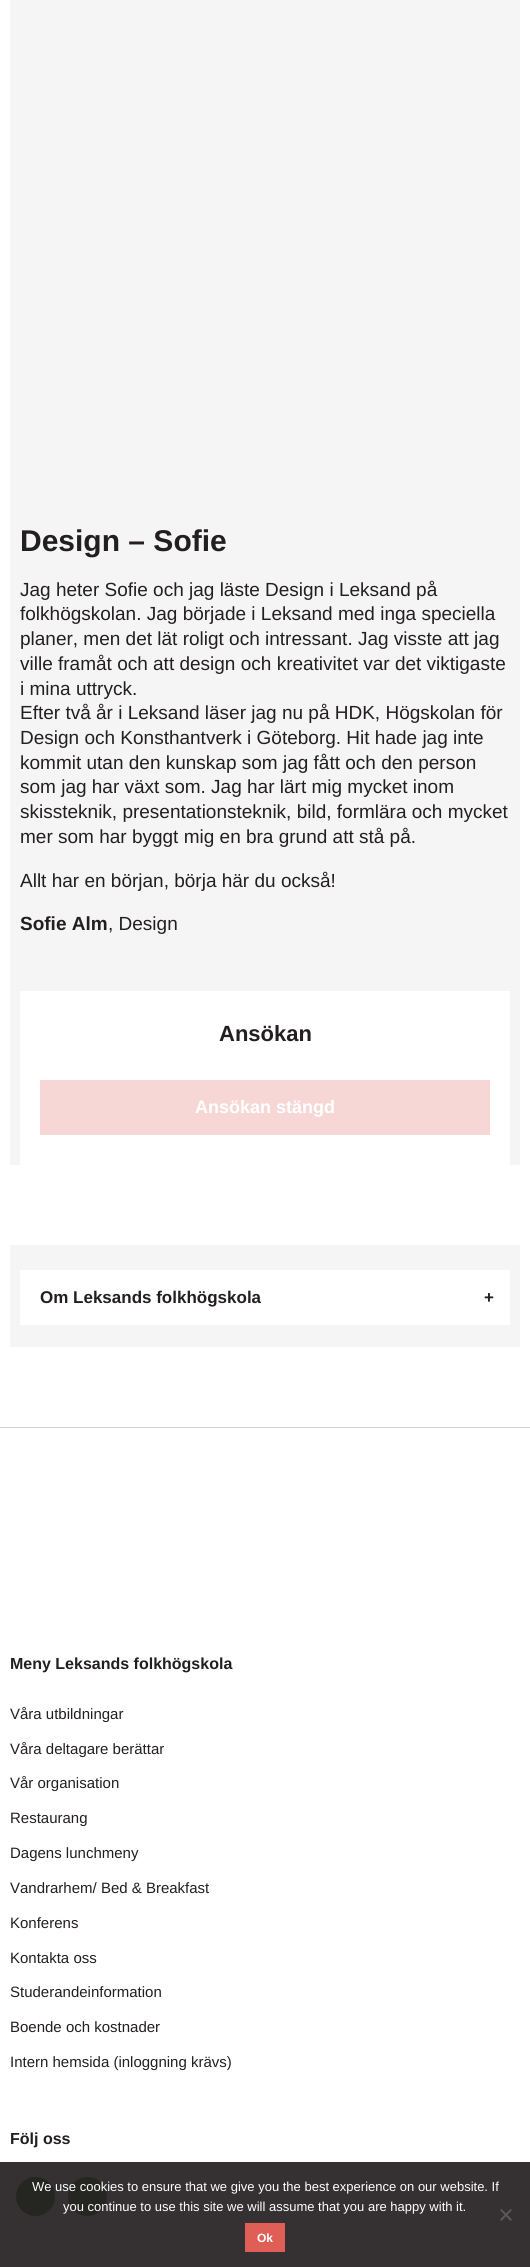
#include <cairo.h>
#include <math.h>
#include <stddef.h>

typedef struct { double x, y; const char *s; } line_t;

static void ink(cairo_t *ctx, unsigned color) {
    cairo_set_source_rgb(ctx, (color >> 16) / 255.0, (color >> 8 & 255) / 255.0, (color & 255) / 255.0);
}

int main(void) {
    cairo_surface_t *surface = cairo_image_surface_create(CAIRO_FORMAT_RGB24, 530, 2267);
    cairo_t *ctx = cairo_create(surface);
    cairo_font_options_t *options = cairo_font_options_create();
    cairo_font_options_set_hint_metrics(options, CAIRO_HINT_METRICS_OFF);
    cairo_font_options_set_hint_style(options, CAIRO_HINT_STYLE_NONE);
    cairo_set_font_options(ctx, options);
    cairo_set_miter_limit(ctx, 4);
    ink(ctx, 0xFFFFFF);
    cairo_paint(ctx);
    ink(ctx, 0x353132);
    cairo_rectangle(ctx, 0, 2162, 530, 105);
    cairo_fill(ctx);
    ink(ctx, 0xF5F5F5);
    cairo_rectangle(ctx, 10, 0, 510, 1165);
    cairo_fill(ctx);
    cairo_select_font_face(ctx, "Liberation Sans", CAIRO_FONT_SLANT_NORMAL, CAIRO_FONT_WEIGHT_BOLD);
    cairo_set_font_size(ctx, 30);
    ink(ctx, 0x231F20);
    cairo_move_to(ctx, 20, 551);
    cairo_show_text(ctx, "Design – Sofie");
    cairo_select_font_face(ctx, "Liberation Sans", CAIRO_FONT_SLANT_NORMAL, CAIRO_FONT_WEIGHT_NORMAL);
    cairo_set_font_size(ctx, 19);
    {
        static const line_t items[] = {
            {20, 596, "Jag heter Sofie och jag läste Design i Leksand på"},
            {20, 620, "folkhögskolan. Jag började i Leksand med inga speciella"},
            {20, 645, "planer, men det lät roligt och intressant. Jag visste att jag"},
            {20, 670, "ville framåt och att design och kreativitet var det viktigaste"},
            {20, 695, "i mina uttryck."},
            {20, 719, "Efter två år i Leksand läser jag nu på HDK, Högskolan för"},
            {20, 744, "Design och Konsthantverk i Göteborg. Hit hade jag inte"},
            {20, 769, "kommit utan den kunskap som jag fått och den person"},
            {20, 793, "som jag har växt som. Jag har lärt mig mycket inom"},
            {20, 818, "skissteknik, presentationsteknik, bild, formlära och mycket"},
            {20, 843, "mer som har byggt mig en bra grund att stå på."},
            {20, 887, "Allt har en början, börja här du också!"},
        };
        for (size_t i = 0; i < sizeof items / sizeof *items; i++) {
            cairo_move_to(ctx, items[i].x, items[i].y);
            cairo_show_text(ctx, items[i].s);
        }
    }
    cairo_select_font_face(ctx, "Liberation Sans", CAIRO_FONT_SLANT_NORMAL, CAIRO_FONT_WEIGHT_BOLD);
    cairo_move_to(ctx, 20, 930);
    cairo_show_text(ctx, "Sofie Alm");
    cairo_select_font_face(ctx, "Liberation Sans", CAIRO_FONT_SLANT_NORMAL, CAIRO_FONT_WEIGHT_NORMAL);
    cairo_move_to(ctx, 108, 930);
    cairo_show_text(ctx, ", Design");
    ink(ctx, 0xFFFFFF);
    cairo_rectangle(ctx, 20, 991, 490, 174);
    cairo_fill(ctx);
    cairo_select_font_face(ctx, "Liberation Sans", CAIRO_FONT_SLANT_NORMAL, CAIRO_FONT_WEIGHT_BOLD);
    cairo_set_font_size(ctx, 22);
    ink(ctx, 0x231F20);
    cairo_move_to(ctx, 219, 1041);
    cairo_show_text(ctx, "Ansökan");
    ink(ctx, 0xF7D7D5);
    cairo_rectangle(ctx, 40, 1080, 450, 55);
    cairo_fill(ctx);
    cairo_set_font_size(ctx, 18);
    ink(ctx, 0xFFFFFF);
    cairo_move_to(ctx, 195, 1113);
    cairo_show_text(ctx, "Ansökan stängd");
    ink(ctx, 0xF5F5F5);
    cairo_rectangle(ctx, 10, 1245, 510, 102);
    cairo_fill(ctx);
    ink(ctx, 0xFFFFFF);
    cairo_rectangle(ctx, 20, 1270, 490, 55);
    cairo_fill(ctx);
    cairo_set_font_size(ctx, 17);
    ink(ctx, 0x231F20);
    cairo_move_to(ctx, 40, 1303);
    cairo_show_text(ctx, "Om Leksands folkhögskola");
    cairo_move_to(ctx, 484, 1303);
    cairo_show_text(ctx, "+");
    ink(ctx, 0xD3D3D3);
    cairo_rectangle(ctx, 0, 1427, 530, 1);
    cairo_fill(ctx);
    cairo_set_font_size(ctx, 16);
    ink(ctx, 0x231F20);
    cairo_move_to(ctx, 10, 1669);
    cairo_show_text(ctx, "Meny Leksands folkhögskola");
    cairo_select_font_face(ctx, "Liberation Sans", CAIRO_FONT_SLANT_NORMAL, CAIRO_FONT_WEIGHT_NORMAL);
    cairo_set_font_size(ctx, 15);
    {
        static const line_t items[] = {
            {10, 1719, "Våra utbildningar"},
            {10, 1754, "Våra deltagare berättar"},
            {10, 1788, "Vår organisation"},
            {10, 1823, "Restaurang"},
            {10, 1858, "Dagens lunchmeny"},
            {10, 1893, "Vandrarhem/ Bed & Breakfast"},
            {10, 1928, "Konferens"},
            {10, 1963, "Kontakta oss"},
            {10, 1997, "Studerandeinformation"},
            {10, 2032, "Boende och kostnader"},
            {10, 2067, "Intern hemsida (inloggning krävs)"},
        };
        for (size_t i = 0; i < sizeof items / sizeof *items; i++) {
            cairo_move_to(ctx, items[i].x, items[i].y);
            cairo_show_text(ctx, items[i].s);
        }
    }
    cairo_select_font_face(ctx, "Liberation Sans", CAIRO_FONT_SLANT_NORMAL, CAIRO_FONT_WEIGHT_BOLD);
    cairo_set_font_size(ctx, 16);
    cairo_move_to(ctx, 10, 2144);
    cairo_show_text(ctx, "Följ oss");
    ink(ctx, 0x252521);
    cairo_new_path(ctx);
    cairo_arc(ctx, 35.5, 2196.5, 19.5, 0, 2 * M_PI);
    cairo_fill(ctx);
    cairo_arc(ctx, 87.5, 2196.5, 19.5, 0, 2 * M_PI);
    cairo_fill(ctx);
    cairo_select_font_face(ctx, "Liberation Sans", CAIRO_FONT_SLANT_NORMAL, CAIRO_FONT_WEIGHT_NORMAL);
    cairo_set_font_size(ctx, 13);
    ink(ctx, 0xFFFFFF);
    cairo_move_to(ctx, 32, 2191);
    cairo_show_text(ctx, "We use cookies to ensure that we give you the best experience on our website. If");
    cairo_move_to(ctx, 63, 2211);
    cairo_show_text(ctx, "you continue to use this site we will assume that you are happy with it.");
    ink(ctx, 0x5A5859);
    cairo_new_path(ctx);
    cairo_move_to(ctx, 510.5, 2209);
    cairo_line_to(ctx, 512, 2210);
    cairo_line_to(ctx, 501.5, 2221);
    cairo_line_to(ctx, 500, 2219.5);
    cairo_close_path(ctx);
    cairo_fill(ctx);
    cairo_new_path(ctx);
    cairo_move_to(ctx, 500, 2210);
    cairo_line_to(ctx, 501.5, 2209);
    cairo_line_to(ctx, 512, 2219.5);
    cairo_line_to(ctx, 510.5, 2221);
    cairo_close_path(ctx);
    cairo_fill(ctx);
    ink(ctx, 0xDF5F56);
    cairo_rectangle(ctx, 245, 2223, 40, 29);
    cairo_fill(ctx);
    cairo_select_font_face(ctx, "Liberation Sans", CAIRO_FONT_SLANT_NORMAL, CAIRO_FONT_WEIGHT_BOLD);
    cairo_set_font_size(ctx, 12);
    ink(ctx, 0xFFFFFF);
    cairo_move_to(ctx, 257, 2242);
    cairo_show_text(ctx, "Ok");
    cairo_surface_write_to_png(surface, "image.png");
    cairo_font_options_destroy(options);
    cairo_destroy(ctx);
    cairo_surface_destroy(surface);
    return 0;
}
